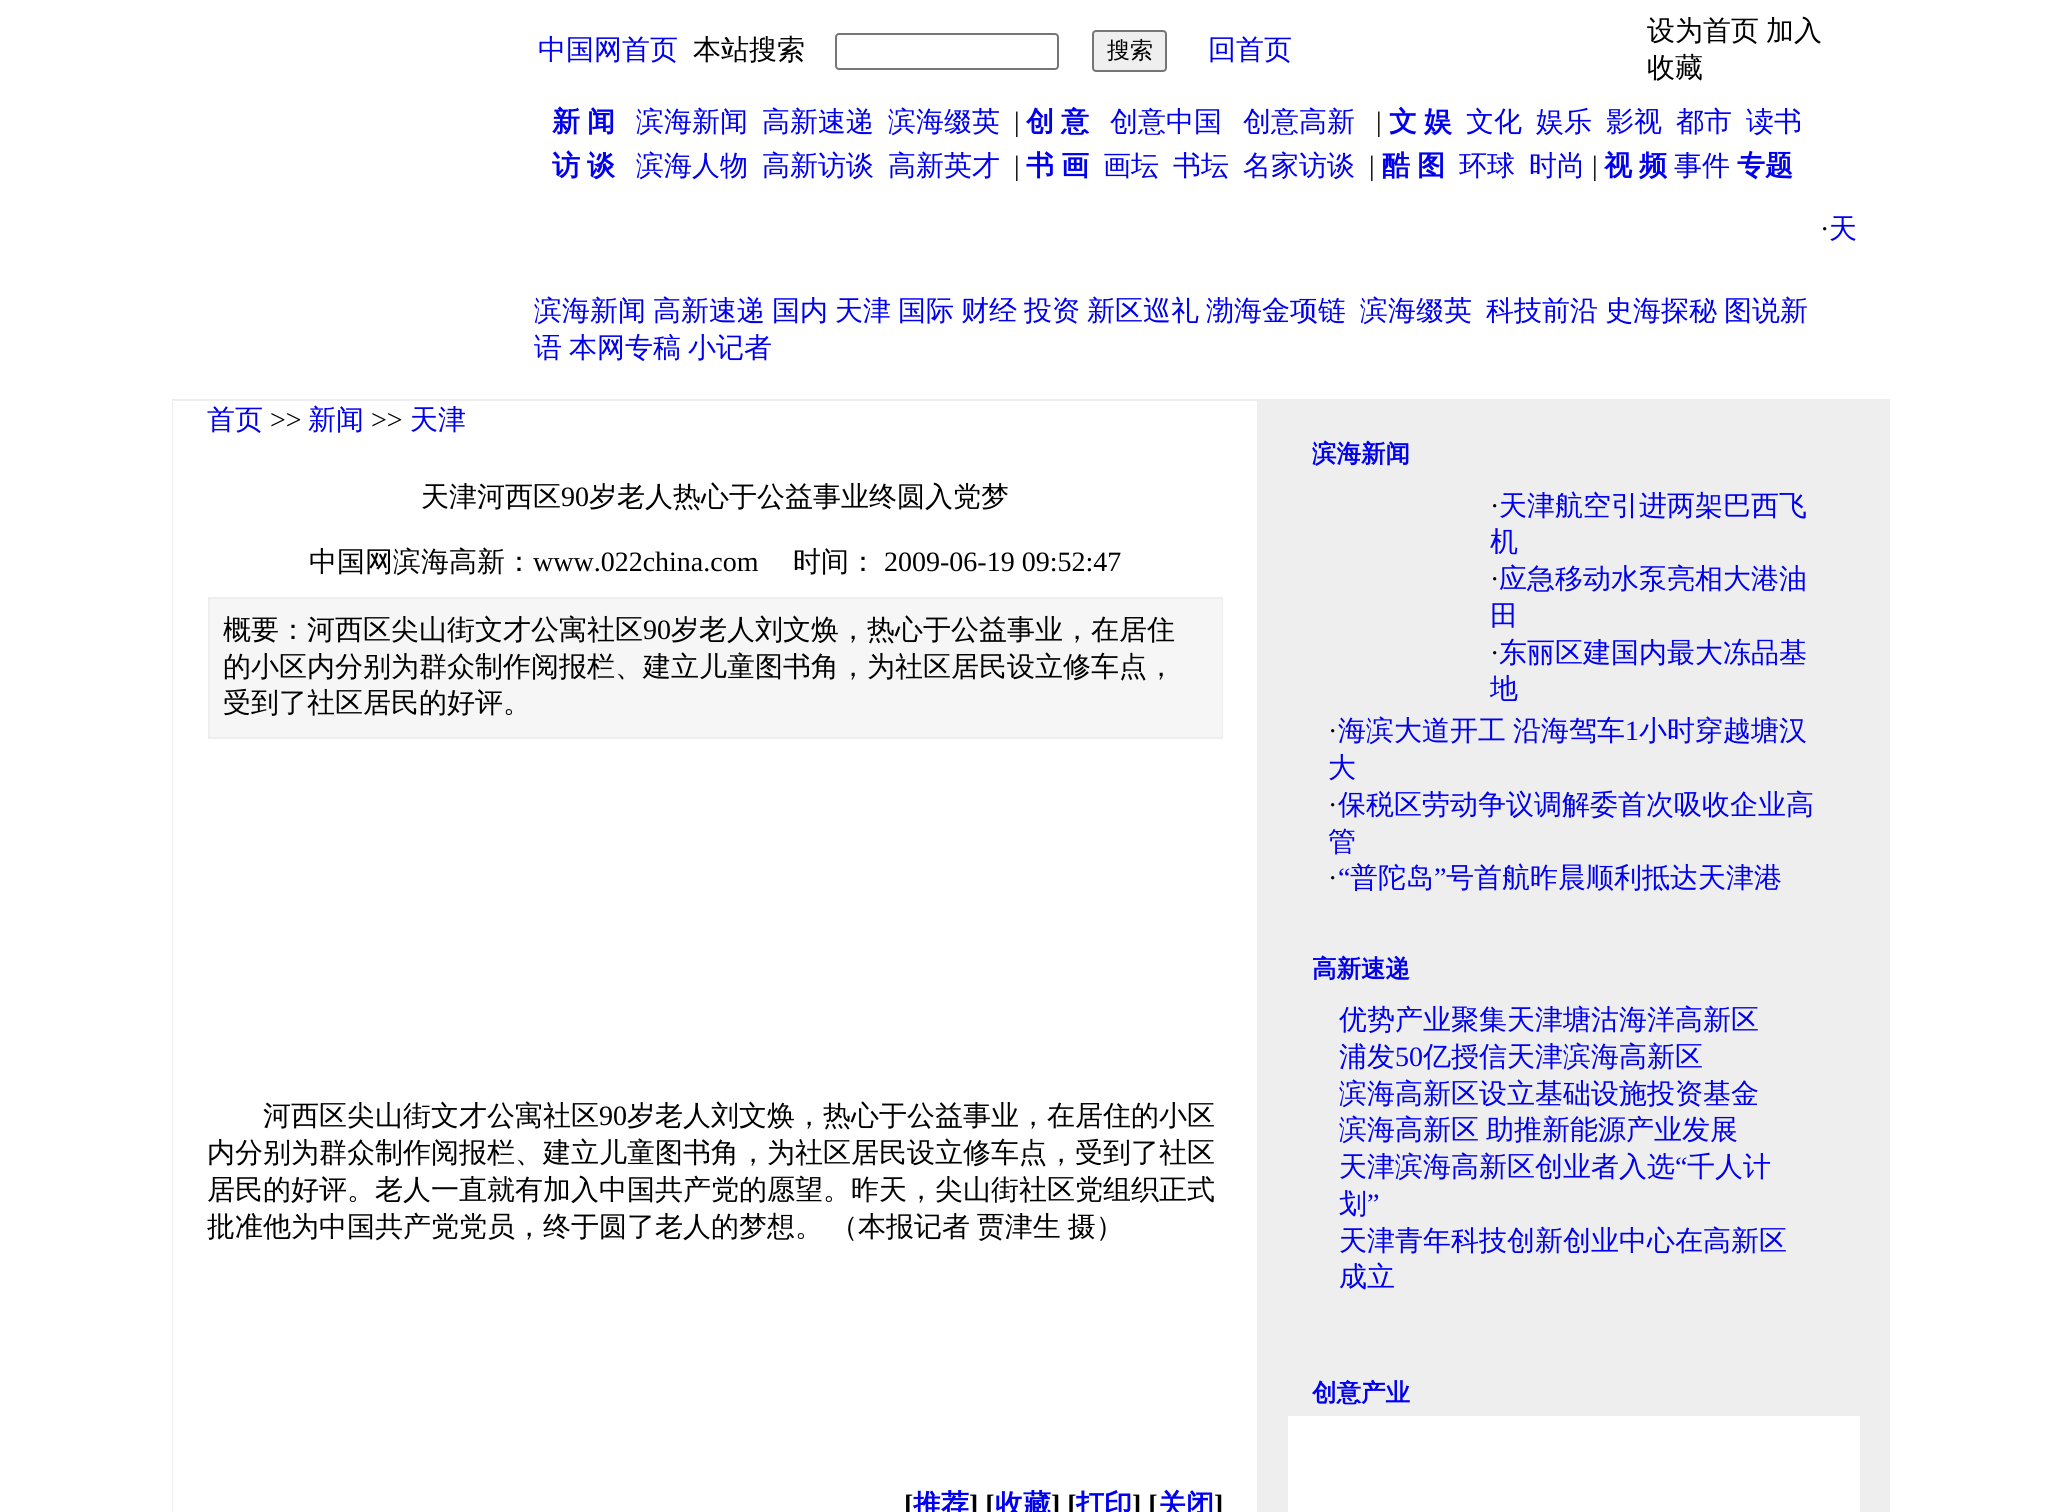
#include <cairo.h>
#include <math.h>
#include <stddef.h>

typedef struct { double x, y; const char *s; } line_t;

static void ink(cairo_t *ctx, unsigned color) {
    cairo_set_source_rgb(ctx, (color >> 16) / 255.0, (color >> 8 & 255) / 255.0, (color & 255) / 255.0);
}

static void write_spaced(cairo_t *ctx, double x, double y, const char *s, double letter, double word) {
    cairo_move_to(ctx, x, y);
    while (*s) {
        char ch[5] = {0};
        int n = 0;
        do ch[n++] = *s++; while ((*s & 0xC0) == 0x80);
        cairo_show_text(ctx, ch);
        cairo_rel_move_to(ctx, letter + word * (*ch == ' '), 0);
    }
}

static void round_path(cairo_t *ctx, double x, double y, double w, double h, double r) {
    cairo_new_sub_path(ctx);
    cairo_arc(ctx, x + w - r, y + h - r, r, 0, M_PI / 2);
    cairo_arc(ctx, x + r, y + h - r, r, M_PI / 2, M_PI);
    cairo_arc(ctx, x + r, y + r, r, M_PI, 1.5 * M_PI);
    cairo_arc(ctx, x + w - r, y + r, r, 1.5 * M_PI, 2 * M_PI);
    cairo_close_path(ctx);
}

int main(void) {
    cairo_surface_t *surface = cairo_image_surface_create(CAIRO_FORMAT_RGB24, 2061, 1512);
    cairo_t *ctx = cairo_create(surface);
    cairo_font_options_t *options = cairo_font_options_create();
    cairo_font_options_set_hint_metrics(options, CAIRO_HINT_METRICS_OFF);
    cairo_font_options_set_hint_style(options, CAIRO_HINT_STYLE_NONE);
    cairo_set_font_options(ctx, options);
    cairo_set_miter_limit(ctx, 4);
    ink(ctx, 0xFFFFFF);
    cairo_paint(ctx);
    cairo_select_font_face(ctx, "WenQuanYi Zen Hei Medium", CAIRO_FONT_SLANT_NORMAL, CAIRO_FONT_WEIGHT_NORMAL);
    cairo_set_font_size(ctx, 28);
    ink(ctx, 0x0000EE);
    cairo_move_to(ctx, 538, 59);
    cairo_show_text(ctx, "中国网首页");
    ink(ctx, 0x000000);
    cairo_move_to(ctx, 693, 59);
    cairo_show_text(ctx, "本站搜索");
    round_path(ctx, 836, 34, 222, 35, 3);
    ink(ctx, 0x767676);
    cairo_stroke(ctx);
    ink(ctx, 0xEFEFEF);
    round_path(ctx, 1093, 31, 73, 40, 3);
    cairo_fill_preserve(ctx);
    ink(ctx, 0x767676);
    cairo_stroke(ctx);
    cairo_set_font_size(ctx, 23);
    ink(ctx, 0x000000);
    cairo_move_to(ctx, 1107, 58);
    cairo_show_text(ctx, "搜索");
    cairo_set_font_size(ctx, 28);
    ink(ctx, 0x0000EE);
    cairo_move_to(ctx, 1208, 59);
    cairo_show_text(ctx, "回首页");
    ink(ctx, 0x000000);
    {
        static const line_t items[] = {
            {1647, 40, "设为首页"},
            {1766, 40, "加入"},
            {1647, 77, "收藏"},
        };
        for (size_t i = 0; i < sizeof items / sizeof *items; i++) {
            cairo_move_to(ctx, items[i].x, items[i].y);
            cairo_show_text(ctx, items[i].s);
        }
    }
    cairo_select_font_face(ctx, "WenQuanYi Zen Hei", CAIRO_FONT_SLANT_NORMAL, CAIRO_FONT_WEIGHT_BOLD);
    ink(ctx, 0x0000EE);
    write_spaced(ctx, 552, 131, "新 闻", 0, -1.5);
    cairo_select_font_face(ctx, "WenQuanYi Zen Hei Medium", CAIRO_FONT_SLANT_NORMAL, CAIRO_FONT_WEIGHT_NORMAL);
    {
        static const line_t items[] = {
            {636, 131, "滨海新闻"},
            {762, 131, "高新速递"},
            {888, 131, "滨海缀英"},
        };
        for (size_t i = 0; i < sizeof items / sizeof *items; i++) {
            cairo_move_to(ctx, items[i].x, items[i].y);
            cairo_show_text(ctx, items[i].s);
        }
    }
    cairo_select_font_face(ctx, "Liberation Serif", CAIRO_FONT_SLANT_NORMAL, CAIRO_FONT_WEIGHT_NORMAL);
    ink(ctx, 0x000000);
    cairo_move_to(ctx, 1014, 131);
    cairo_show_text(ctx, "|");
    cairo_select_font_face(ctx, "WenQuanYi Zen Hei", CAIRO_FONT_SLANT_NORMAL, CAIRO_FONT_WEIGHT_BOLD);
    ink(ctx, 0x0000EE);
    write_spaced(ctx, 1026, 131, "创 意", 0, -1.5);
    cairo_select_font_face(ctx, "WenQuanYi Zen Hei Medium", CAIRO_FONT_SLANT_NORMAL, CAIRO_FONT_WEIGHT_NORMAL);
    cairo_move_to(ctx, 1110, 131);
    cairo_show_text(ctx, "创意中国");
    cairo_move_to(ctx, 1243, 131);
    cairo_show_text(ctx, "创意高新");
    cairo_select_font_face(ctx, "Liberation Serif", CAIRO_FONT_SLANT_NORMAL, CAIRO_FONT_WEIGHT_NORMAL);
    ink(ctx, 0x000000);
    cairo_move_to(ctx, 1376, 131);
    cairo_show_text(ctx, "|");
    cairo_select_font_face(ctx, "WenQuanYi Zen Hei", CAIRO_FONT_SLANT_NORMAL, CAIRO_FONT_WEIGHT_BOLD);
    ink(ctx, 0x0000EE);
    write_spaced(ctx, 1389, 131, "文 娱", 0, -1.5);
    cairo_select_font_face(ctx, "WenQuanYi Zen Hei Medium", CAIRO_FONT_SLANT_NORMAL, CAIRO_FONT_WEIGHT_NORMAL);
    {
        static const line_t items[] = {
            {1466, 131, "文化"},
            {1536, 131, "娱乐"},
            {1606, 131, "影视"},
            {1676, 131, "都市"},
            {1746, 131, "读书"},
        };
        for (size_t i = 0; i < sizeof items / sizeof *items; i++) {
            cairo_move_to(ctx, items[i].x, items[i].y);
            cairo_show_text(ctx, items[i].s);
        }
    }
    cairo_select_font_face(ctx, "WenQuanYi Zen Hei", CAIRO_FONT_SLANT_NORMAL, CAIRO_FONT_WEIGHT_BOLD);
    write_spaced(ctx, 552, 175, "访 谈", 0, -1.5);
    cairo_select_font_face(ctx, "WenQuanYi Zen Hei Medium", CAIRO_FONT_SLANT_NORMAL, CAIRO_FONT_WEIGHT_NORMAL);
    {
        static const line_t items[] = {
            {636, 175, "滨海人物"},
            {762, 175, "高新访谈"},
            {888, 175, "高新英才"},
        };
        for (size_t i = 0; i < sizeof items / sizeof *items; i++) {
            cairo_move_to(ctx, items[i].x, items[i].y);
            cairo_show_text(ctx, items[i].s);
        }
    }
    cairo_select_font_face(ctx, "Liberation Serif", CAIRO_FONT_SLANT_NORMAL, CAIRO_FONT_WEIGHT_NORMAL);
    ink(ctx, 0x000000);
    cairo_move_to(ctx, 1014, 175);
    cairo_show_text(ctx, "|");
    cairo_select_font_face(ctx, "WenQuanYi Zen Hei", CAIRO_FONT_SLANT_NORMAL, CAIRO_FONT_WEIGHT_BOLD);
    ink(ctx, 0x0000EE);
    write_spaced(ctx, 1026, 175, "书 画", 0, -1.5);
    cairo_select_font_face(ctx, "WenQuanYi Zen Hei Medium", CAIRO_FONT_SLANT_NORMAL, CAIRO_FONT_WEIGHT_NORMAL);
    {
        static const line_t items[] = {
            {1103, 175, "画坛"},
            {1173, 175, "书坛"},
            {1243, 175, "名家访谈"},
        };
        for (size_t i = 0; i < sizeof items / sizeof *items; i++) {
            cairo_move_to(ctx, items[i].x, items[i].y);
            cairo_show_text(ctx, items[i].s);
        }
    }
    cairo_select_font_face(ctx, "Liberation Serif", CAIRO_FONT_SLANT_NORMAL, CAIRO_FONT_WEIGHT_NORMAL);
    ink(ctx, 0x000000);
    cairo_move_to(ctx, 1369, 175);
    cairo_show_text(ctx, "|");
    cairo_select_font_face(ctx, "WenQuanYi Zen Hei", CAIRO_FONT_SLANT_NORMAL, CAIRO_FONT_WEIGHT_BOLD);
    ink(ctx, 0x0000EE);
    write_spaced(ctx, 1382, 175, "酷 图", 0, -1.5);
    cairo_select_font_face(ctx, "WenQuanYi Zen Hei Medium", CAIRO_FONT_SLANT_NORMAL, CAIRO_FONT_WEIGHT_NORMAL);
    cairo_move_to(ctx, 1459, 175);
    cairo_show_text(ctx, "环球");
    cairo_move_to(ctx, 1529, 175);
    cairo_show_text(ctx, "时尚");
    cairo_select_font_face(ctx, "Liberation Serif", CAIRO_FONT_SLANT_NORMAL, CAIRO_FONT_WEIGHT_NORMAL);
    ink(ctx, 0x000000);
    cairo_move_to(ctx, 1592, 175);
    cairo_show_text(ctx, "|");
    cairo_select_font_face(ctx, "WenQuanYi Zen Hei", CAIRO_FONT_SLANT_NORMAL, CAIRO_FONT_WEIGHT_BOLD);
    ink(ctx, 0x0000EE);
    write_spaced(ctx, 1604, 175, "视 频", 0, -1.5);
    cairo_select_font_face(ctx, "WenQuanYi Zen Hei Medium", CAIRO_FONT_SLANT_NORMAL, CAIRO_FONT_WEIGHT_NORMAL);
    cairo_move_to(ctx, 1674, 175);
    cairo_show_text(ctx, "事件");
    cairo_select_font_face(ctx, "WenQuanYi Zen Hei", CAIRO_FONT_SLANT_NORMAL, CAIRO_FONT_WEIGHT_BOLD);
    cairo_move_to(ctx, 1737, 175);
    cairo_show_text(ctx, "专题");
    cairo_select_font_face(ctx, "Liberation Serif", CAIRO_FONT_SLANT_NORMAL, CAIRO_FONT_WEIGHT_NORMAL);
    ink(ctx, 0x000000);
    cairo_move_to(ctx, 1820, 238);
    cairo_show_text(ctx, "·");
    cairo_select_font_face(ctx, "WenQuanYi Zen Hei Medium", CAIRO_FONT_SLANT_NORMAL, CAIRO_FONT_WEIGHT_NORMAL);
    ink(ctx, 0x0000EE);
    {
        static const line_t items[] = {
            {1829, 238, "天"},
            {534, 320, "滨海新闻"},
            {653, 320, "高新速递"},
            {772, 320, "国内"},
            {835, 320, "天津"},
            {898, 320, "国际"},
            {961, 320, "财经"},
            {1024, 320, "投资"},
            {1087, 320, "新区巡礼"},
            {1206, 320, "渤海金项链"},
            {1360, 320, "滨海缀英"},
            {1486, 320, "科技前沿"},
            {1605, 320, "史海探秘"},
            {1724, 320, "图说新"},
            {534, 357, "语"},
            {569, 357, "本网专稿"},
            {688, 357, "小记者"},
        };
        for (size_t i = 0; i < sizeof items / sizeof *items; i++) {
            cairo_move_to(ctx, items[i].x, items[i].y);
            cairo_show_text(ctx, items[i].s);
        }
    }
    ink(ctx, 0xEEEEEE);
    cairo_rectangle(ctx, 172, 399, 1718, 1113);
    cairo_fill(ctx);
    ink(ctx, 0xFFFFFF);
    cairo_rectangle(ctx, 173, 401, 1084, 1111);
    cairo_fill(ctx);
    ink(ctx, 0x0000EE);
    cairo_move_to(ctx, 207, 429);
    cairo_show_text(ctx, "首页");
    cairo_select_font_face(ctx, "Liberation Serif", CAIRO_FONT_SLANT_NORMAL, CAIRO_FONT_WEIGHT_NORMAL);
    ink(ctx, 0x000000);
    cairo_move_to(ctx, 270, 429);
    cairo_show_text(ctx, ">>");
    cairo_select_font_face(ctx, "WenQuanYi Zen Hei Medium", CAIRO_FONT_SLANT_NORMAL, CAIRO_FONT_WEIGHT_NORMAL);
    ink(ctx, 0x0000EE);
    cairo_move_to(ctx, 308, 429);
    cairo_show_text(ctx, "新闻");
    cairo_select_font_face(ctx, "Liberation Serif", CAIRO_FONT_SLANT_NORMAL, CAIRO_FONT_WEIGHT_NORMAL);
    ink(ctx, 0x000000);
    cairo_move_to(ctx, 371, 429);
    cairo_show_text(ctx, ">>");
    cairo_select_font_face(ctx, "WenQuanYi Zen Hei Medium", CAIRO_FONT_SLANT_NORMAL, CAIRO_FONT_WEIGHT_NORMAL);
    ink(ctx, 0x0000EE);
    cairo_move_to(ctx, 410, 429);
    cairo_show_text(ctx, "天津");
    ink(ctx, 0x000000);
    cairo_move_to(ctx, 421, 506);
    cairo_show_text(ctx, "天津河西区");
    cairo_select_font_face(ctx, "Liberation Serif", CAIRO_FONT_SLANT_NORMAL, CAIRO_FONT_WEIGHT_NORMAL);
    cairo_move_to(ctx, 561, 506);
    cairo_show_text(ctx, "90");
    cairo_select_font_face(ctx, "WenQuanYi Zen Hei Medium", CAIRO_FONT_SLANT_NORMAL, CAIRO_FONT_WEIGHT_NORMAL);
    cairo_move_to(ctx, 589, 506);
    cairo_show_text(ctx, "岁老人热心于公益事业终圆入党梦");
    cairo_move_to(ctx, 309, 571);
    cairo_show_text(ctx, "中国网滨海高新：");
    cairo_select_font_face(ctx, "Liberation Serif", CAIRO_FONT_SLANT_NORMAL, CAIRO_FONT_WEIGHT_NORMAL);
    cairo_move_to(ctx, 533, 571);
    cairo_show_text(ctx, "www.022china.com");
    cairo_select_font_face(ctx, "WenQuanYi Zen Hei Medium", CAIRO_FONT_SLANT_NORMAL, CAIRO_FONT_WEIGHT_NORMAL);
    cairo_move_to(ctx, 793, 571);
    cairo_show_text(ctx, "时间：");
    cairo_select_font_face(ctx, "Liberation Serif", CAIRO_FONT_SLANT_NORMAL, CAIRO_FONT_WEIGHT_NORMAL);
    cairo_move_to(ctx, 884, 571);
    cairo_show_text(ctx, "2009-06-19 09:52:47");
    ink(ctx, 0xEEEEEE);
    cairo_rectangle(ctx, 208, 597, 1015, 142);
    cairo_fill(ctx);
    ink(ctx, 0xF6F6F6);
    cairo_rectangle(ctx, 210, 599, 1012, 138);
    cairo_fill(ctx);
    cairo_select_font_face(ctx, "WenQuanYi Zen Hei Medium", CAIRO_FONT_SLANT_NORMAL, CAIRO_FONT_WEIGHT_NORMAL);
    ink(ctx, 0x000000);
    cairo_move_to(ctx, 223, 639);
    cairo_show_text(ctx, "概要：河西区尖山街文才公寓社区");
    cairo_select_font_face(ctx, "Liberation Serif", CAIRO_FONT_SLANT_NORMAL, CAIRO_FONT_WEIGHT_NORMAL);
    cairo_move_to(ctx, 643, 639);
    cairo_show_text(ctx, "90");
    cairo_select_font_face(ctx, "WenQuanYi Zen Hei Medium", CAIRO_FONT_SLANT_NORMAL, CAIRO_FONT_WEIGHT_NORMAL);
    {
        static const line_t items[] = {
            {671, 639, "岁老人刘文焕，热心于公益事业，在居住"},
            {223, 676, "的小区内分别为群众制作阅报栏、建立儿童图书角，为社区居民设立修车点，"},
            {223, 712, "受到了社区居民的好评。"},
            {263, 1125, "河西区尖山街文才公寓社区"},
        };
        for (size_t i = 0; i < sizeof items / sizeof *items; i++) {
            cairo_move_to(ctx, items[i].x, items[i].y);
            cairo_show_text(ctx, items[i].s);
        }
    }
    cairo_select_font_face(ctx, "Liberation Serif", CAIRO_FONT_SLANT_NORMAL, CAIRO_FONT_WEIGHT_NORMAL);
    cairo_move_to(ctx, 599, 1125);
    cairo_show_text(ctx, "90");
    cairo_select_font_face(ctx, "WenQuanYi Zen Hei Medium", CAIRO_FONT_SLANT_NORMAL, CAIRO_FONT_WEIGHT_NORMAL);
    {
        static const line_t items[] = {
            {627, 1125, "岁老人刘文焕，热心于公益事业，在居住的小区"},
            {207, 1162, "内分别为群众制作阅报栏、建立儿童图书角，为社区居民设立修车点，受到了社区"},
            {207, 1199, "居民的好评。老人一直就有加入中国共产党的愿望。昨天，尖山街社区党组织正式"},
        };
        for (size_t i = 0; i < sizeof items / sizeof *items; i++) {
            cairo_move_to(ctx, items[i].x, items[i].y);
            cairo_show_text(ctx, items[i].s);
        }
    }
    write_spaced(ctx, 207, 1236, "批准他为中国共产党党员，终于圆了老人的梦想。 （本报记者 贾津生 摄）", 0, -1.5);
    cairo_select_font_face(ctx, "Liberation Serif", CAIRO_FONT_SLANT_NORMAL, CAIRO_FONT_WEIGHT_BOLD);
    cairo_move_to(ctx, 904, 1514);
    cairo_show_text(ctx, "[");
    cairo_select_font_face(ctx, "WenQuanYi Zen Hei", CAIRO_FONT_SLANT_NORMAL, CAIRO_FONT_WEIGHT_BOLD);
    ink(ctx, 0x0000EE);
    cairo_move_to(ctx, 913, 1514);
    cairo_show_text(ctx, "推荐");
    cairo_select_font_face(ctx, "Liberation Serif", CAIRO_FONT_SLANT_NORMAL, CAIRO_FONT_WEIGHT_BOLD);
    ink(ctx, 0x000000);
    cairo_move_to(ctx, 969, 1514);
    cairo_show_text(ctx, "] [");
    cairo_select_font_face(ctx, "WenQuanYi Zen Hei", CAIRO_FONT_SLANT_NORMAL, CAIRO_FONT_WEIGHT_BOLD);
    ink(ctx, 0x0000EE);
    cairo_move_to(ctx, 995, 1514);
    cairo_show_text(ctx, "收藏");
    cairo_select_font_face(ctx, "Liberation Serif", CAIRO_FONT_SLANT_NORMAL, CAIRO_FONT_WEIGHT_BOLD);
    ink(ctx, 0x000000);
    cairo_move_to(ctx, 1051, 1514);
    cairo_show_text(ctx, "] [");
    cairo_select_font_face(ctx, "WenQuanYi Zen Hei", CAIRO_FONT_SLANT_NORMAL, CAIRO_FONT_WEIGHT_BOLD);
    ink(ctx, 0x0000EE);
    cairo_move_to(ctx, 1076, 1514);
    cairo_show_text(ctx, "打印");
    cairo_select_font_face(ctx, "Liberation Serif", CAIRO_FONT_SLANT_NORMAL, CAIRO_FONT_WEIGHT_BOLD);
    ink(ctx, 0x000000);
    cairo_move_to(ctx, 1132, 1514);
    cairo_show_text(ctx, "] [");
    cairo_select_font_face(ctx, "WenQuanYi Zen Hei", CAIRO_FONT_SLANT_NORMAL, CAIRO_FONT_WEIGHT_BOLD);
    ink(ctx, 0x0000EE);
    cairo_move_to(ctx, 1158, 1514);
    cairo_show_text(ctx, "关闭");
    cairo_select_font_face(ctx, "Liberation Serif", CAIRO_FONT_SLANT_NORMAL, CAIRO_FONT_WEIGHT_BOLD);
    ink(ctx, 0x000000);
    cairo_move_to(ctx, 1214, 1514);
    cairo_show_text(ctx, "]");
    cairo_select_font_face(ctx, "WenQuanYi Zen Hei", CAIRO_FONT_SLANT_NORMAL, CAIRO_FONT_WEIGHT_BOLD);
    cairo_set_font_size(ctx, 24.5);
    ink(ctx, 0x0000EE);
    cairo_move_to(ctx, 1312, 462);
    cairo_show_text(ctx, "滨海新闻");
    cairo_select_font_face(ctx, "Liberation Serif", CAIRO_FONT_SLANT_NORMAL, CAIRO_FONT_WEIGHT_NORMAL);
    cairo_set_font_size(ctx, 28);
    ink(ctx, 0x000000);
    cairo_move_to(ctx, 1490, 515);
    cairo_show_text(ctx, "·");
    cairo_select_font_face(ctx, "WenQuanYi Zen Hei Medium", CAIRO_FONT_SLANT_NORMAL, CAIRO_FONT_WEIGHT_NORMAL);
    ink(ctx, 0x0000EE);
    cairo_move_to(ctx, 1499, 515);
    cairo_show_text(ctx, "天津航空引进两架巴西飞");
    cairo_move_to(ctx, 1490, 551);
    cairo_show_text(ctx, "机");
    cairo_select_font_face(ctx, "Liberation Serif", CAIRO_FONT_SLANT_NORMAL, CAIRO_FONT_WEIGHT_NORMAL);
    ink(ctx, 0x000000);
    cairo_move_to(ctx, 1490, 588);
    cairo_show_text(ctx, "·");
    cairo_select_font_face(ctx, "WenQuanYi Zen Hei Medium", CAIRO_FONT_SLANT_NORMAL, CAIRO_FONT_WEIGHT_NORMAL);
    ink(ctx, 0x0000EE);
    cairo_move_to(ctx, 1499, 588);
    cairo_show_text(ctx, "应急移动水泵亮相大港油");
    cairo_move_to(ctx, 1490, 625);
    cairo_show_text(ctx, "田");
    cairo_select_font_face(ctx, "Liberation Serif", CAIRO_FONT_SLANT_NORMAL, CAIRO_FONT_WEIGHT_NORMAL);
    ink(ctx, 0x000000);
    cairo_move_to(ctx, 1490, 662);
    cairo_show_text(ctx, "·");
    cairo_select_font_face(ctx, "WenQuanYi Zen Hei Medium", CAIRO_FONT_SLANT_NORMAL, CAIRO_FONT_WEIGHT_NORMAL);
    ink(ctx, 0x0000EE);
    cairo_move_to(ctx, 1499, 662);
    cairo_show_text(ctx, "东丽区建国内最大冻品基");
    cairo_move_to(ctx, 1490, 698);
    cairo_show_text(ctx, "地");
    cairo_select_font_face(ctx, "Liberation Serif", CAIRO_FONT_SLANT_NORMAL, CAIRO_FONT_WEIGHT_NORMAL);
    ink(ctx, 0x000000);
    cairo_move_to(ctx, 1328, 740);
    cairo_show_text(ctx, "·");
    cairo_select_font_face(ctx, "WenQuanYi Zen Hei Medium", CAIRO_FONT_SLANT_NORMAL, CAIRO_FONT_WEIGHT_NORMAL);
    ink(ctx, 0x0000EE);
    write_spaced(ctx, 1338, 740, "海滨大道开工 沿海驾车", 0, -1.5);
    cairo_select_font_face(ctx, "Liberation Serif", CAIRO_FONT_SLANT_NORMAL, CAIRO_FONT_WEIGHT_NORMAL);
    cairo_move_to(ctx, 1625, 740);
    cairo_show_text(ctx, "1");
    cairo_select_font_face(ctx, "WenQuanYi Zen Hei Medium", CAIRO_FONT_SLANT_NORMAL, CAIRO_FONT_WEIGHT_NORMAL);
    cairo_move_to(ctx, 1639, 740);
    cairo_show_text(ctx, "小时穿越塘汉");
    cairo_move_to(ctx, 1328, 777);
    cairo_show_text(ctx, "大");
    cairo_select_font_face(ctx, "Liberation Serif", CAIRO_FONT_SLANT_NORMAL, CAIRO_FONT_WEIGHT_NORMAL);
    ink(ctx, 0x000000);
    cairo_move_to(ctx, 1328, 814);
    cairo_show_text(ctx, "·");
    cairo_select_font_face(ctx, "WenQuanYi Zen Hei Medium", CAIRO_FONT_SLANT_NORMAL, CAIRO_FONT_WEIGHT_NORMAL);
    ink(ctx, 0x0000EE);
    cairo_move_to(ctx, 1338, 814);
    cairo_show_text(ctx, "保税区劳动争议调解委首次吸收企业高");
    cairo_move_to(ctx, 1328, 851);
    cairo_show_text(ctx, "管");
    cairo_select_font_face(ctx, "Liberation Serif", CAIRO_FONT_SLANT_NORMAL, CAIRO_FONT_WEIGHT_NORMAL);
    cairo_move_to(ctx, 1338, 887);
    cairo_show_text(ctx, "“");
    cairo_select_font_face(ctx, "WenQuanYi Zen Hei Medium", CAIRO_FONT_SLANT_NORMAL, CAIRO_FONT_WEIGHT_NORMAL);
    cairo_move_to(ctx, 1350, 887);
    cairo_show_text(ctx, "普陀岛");
    cairo_select_font_face(ctx, "Liberation Serif", CAIRO_FONT_SLANT_NORMAL, CAIRO_FONT_WEIGHT_NORMAL);
    cairo_move_to(ctx, 1434, 887);
    cairo_show_text(ctx, "”");
    cairo_select_font_face(ctx, "WenQuanYi Zen Hei Medium", CAIRO_FONT_SLANT_NORMAL, CAIRO_FONT_WEIGHT_NORMAL);
    cairo_move_to(ctx, 1446, 887);
    cairo_show_text(ctx, "号首航昨晨顺利抵达天津港");
    cairo_select_font_face(ctx, "Liberation Serif", CAIRO_FONT_SLANT_NORMAL, CAIRO_FONT_WEIGHT_NORMAL);
    ink(ctx, 0x000000);
    cairo_move_to(ctx, 1328, 887);
    cairo_show_text(ctx, "·");
    cairo_select_font_face(ctx, "WenQuanYi Zen Hei", CAIRO_FONT_SLANT_NORMAL, CAIRO_FONT_WEIGHT_BOLD);
    cairo_set_font_size(ctx, 24.5);
    ink(ctx, 0x0000EE);
    cairo_move_to(ctx, 1312, 977);
    cairo_show_text(ctx, "高新速递");
    cairo_select_font_face(ctx, "WenQuanYi Zen Hei Medium", CAIRO_FONT_SLANT_NORMAL, CAIRO_FONT_WEIGHT_NORMAL);
    cairo_set_font_size(ctx, 28);
    cairo_move_to(ctx, 1339, 1029);
    cairo_show_text(ctx, "优势产业聚集天津塘沽海洋高新区");
    cairo_move_to(ctx, 1339, 1066);
    cairo_show_text(ctx, "浦发");
    cairo_select_font_face(ctx, "Liberation Serif", CAIRO_FONT_SLANT_NORMAL, CAIRO_FONT_WEIGHT_NORMAL);
    cairo_move_to(ctx, 1395, 1066);
    cairo_show_text(ctx, "50");
    cairo_select_font_face(ctx, "WenQuanYi Zen Hei Medium", CAIRO_FONT_SLANT_NORMAL, CAIRO_FONT_WEIGHT_NORMAL);
    cairo_move_to(ctx, 1423, 1066);
    cairo_show_text(ctx, "亿授信天津滨海高新区");
    cairo_move_to(ctx, 1339, 1103);
    cairo_show_text(ctx, "滨海高新区设立基础设施投资基金");
    write_spaced(ctx, 1339, 1139, "滨海高新区 助推新能源产业发展", 0, -1.5);
    cairo_move_to(ctx, 1339, 1176);
    cairo_show_text(ctx, "天津滨海高新区创业者入选");
    cairo_select_font_face(ctx, "Liberation Serif", CAIRO_FONT_SLANT_NORMAL, CAIRO_FONT_WEIGHT_NORMAL);
    cairo_move_to(ctx, 1675, 1176);
    cairo_show_text(ctx, "“");
    cairo_select_font_face(ctx, "WenQuanYi Zen Hei Medium", CAIRO_FONT_SLANT_NORMAL, CAIRO_FONT_WEIGHT_NORMAL);
    cairo_move_to(ctx, 1687, 1176);
    cairo_show_text(ctx, "千人计");
    cairo_move_to(ctx, 1339, 1213);
    cairo_show_text(ctx, "划");
    cairo_select_font_face(ctx, "Liberation Serif", CAIRO_FONT_SLANT_NORMAL, CAIRO_FONT_WEIGHT_NORMAL);
    cairo_move_to(ctx, 1367, 1213);
    cairo_show_text(ctx, "”");
    cairo_select_font_face(ctx, "WenQuanYi Zen Hei Medium", CAIRO_FONT_SLANT_NORMAL, CAIRO_FONT_WEIGHT_NORMAL);
    cairo_move_to(ctx, 1339, 1250);
    cairo_show_text(ctx, "天津青年科技创新创业中心在高新区");
    cairo_move_to(ctx, 1339, 1286);
    cairo_show_text(ctx, "成立");
    cairo_select_font_face(ctx, "WenQuanYi Zen Hei", CAIRO_FONT_SLANT_NORMAL, CAIRO_FONT_WEIGHT_BOLD);
    cairo_set_font_size(ctx, 24.5);
    cairo_move_to(ctx, 1312, 1401);
    cairo_show_text(ctx, "创意产业");
    ink(ctx, 0xFFFFFF);
    cairo_rectangle(ctx, 1288, 1416, 572, 96);
    cairo_fill(ctx);
    cairo_surface_write_to_png(surface, "image.png");
    cairo_font_options_destroy(options);
    cairo_destroy(ctx);
    cairo_surface_destroy(surface);
    return 0;
}
